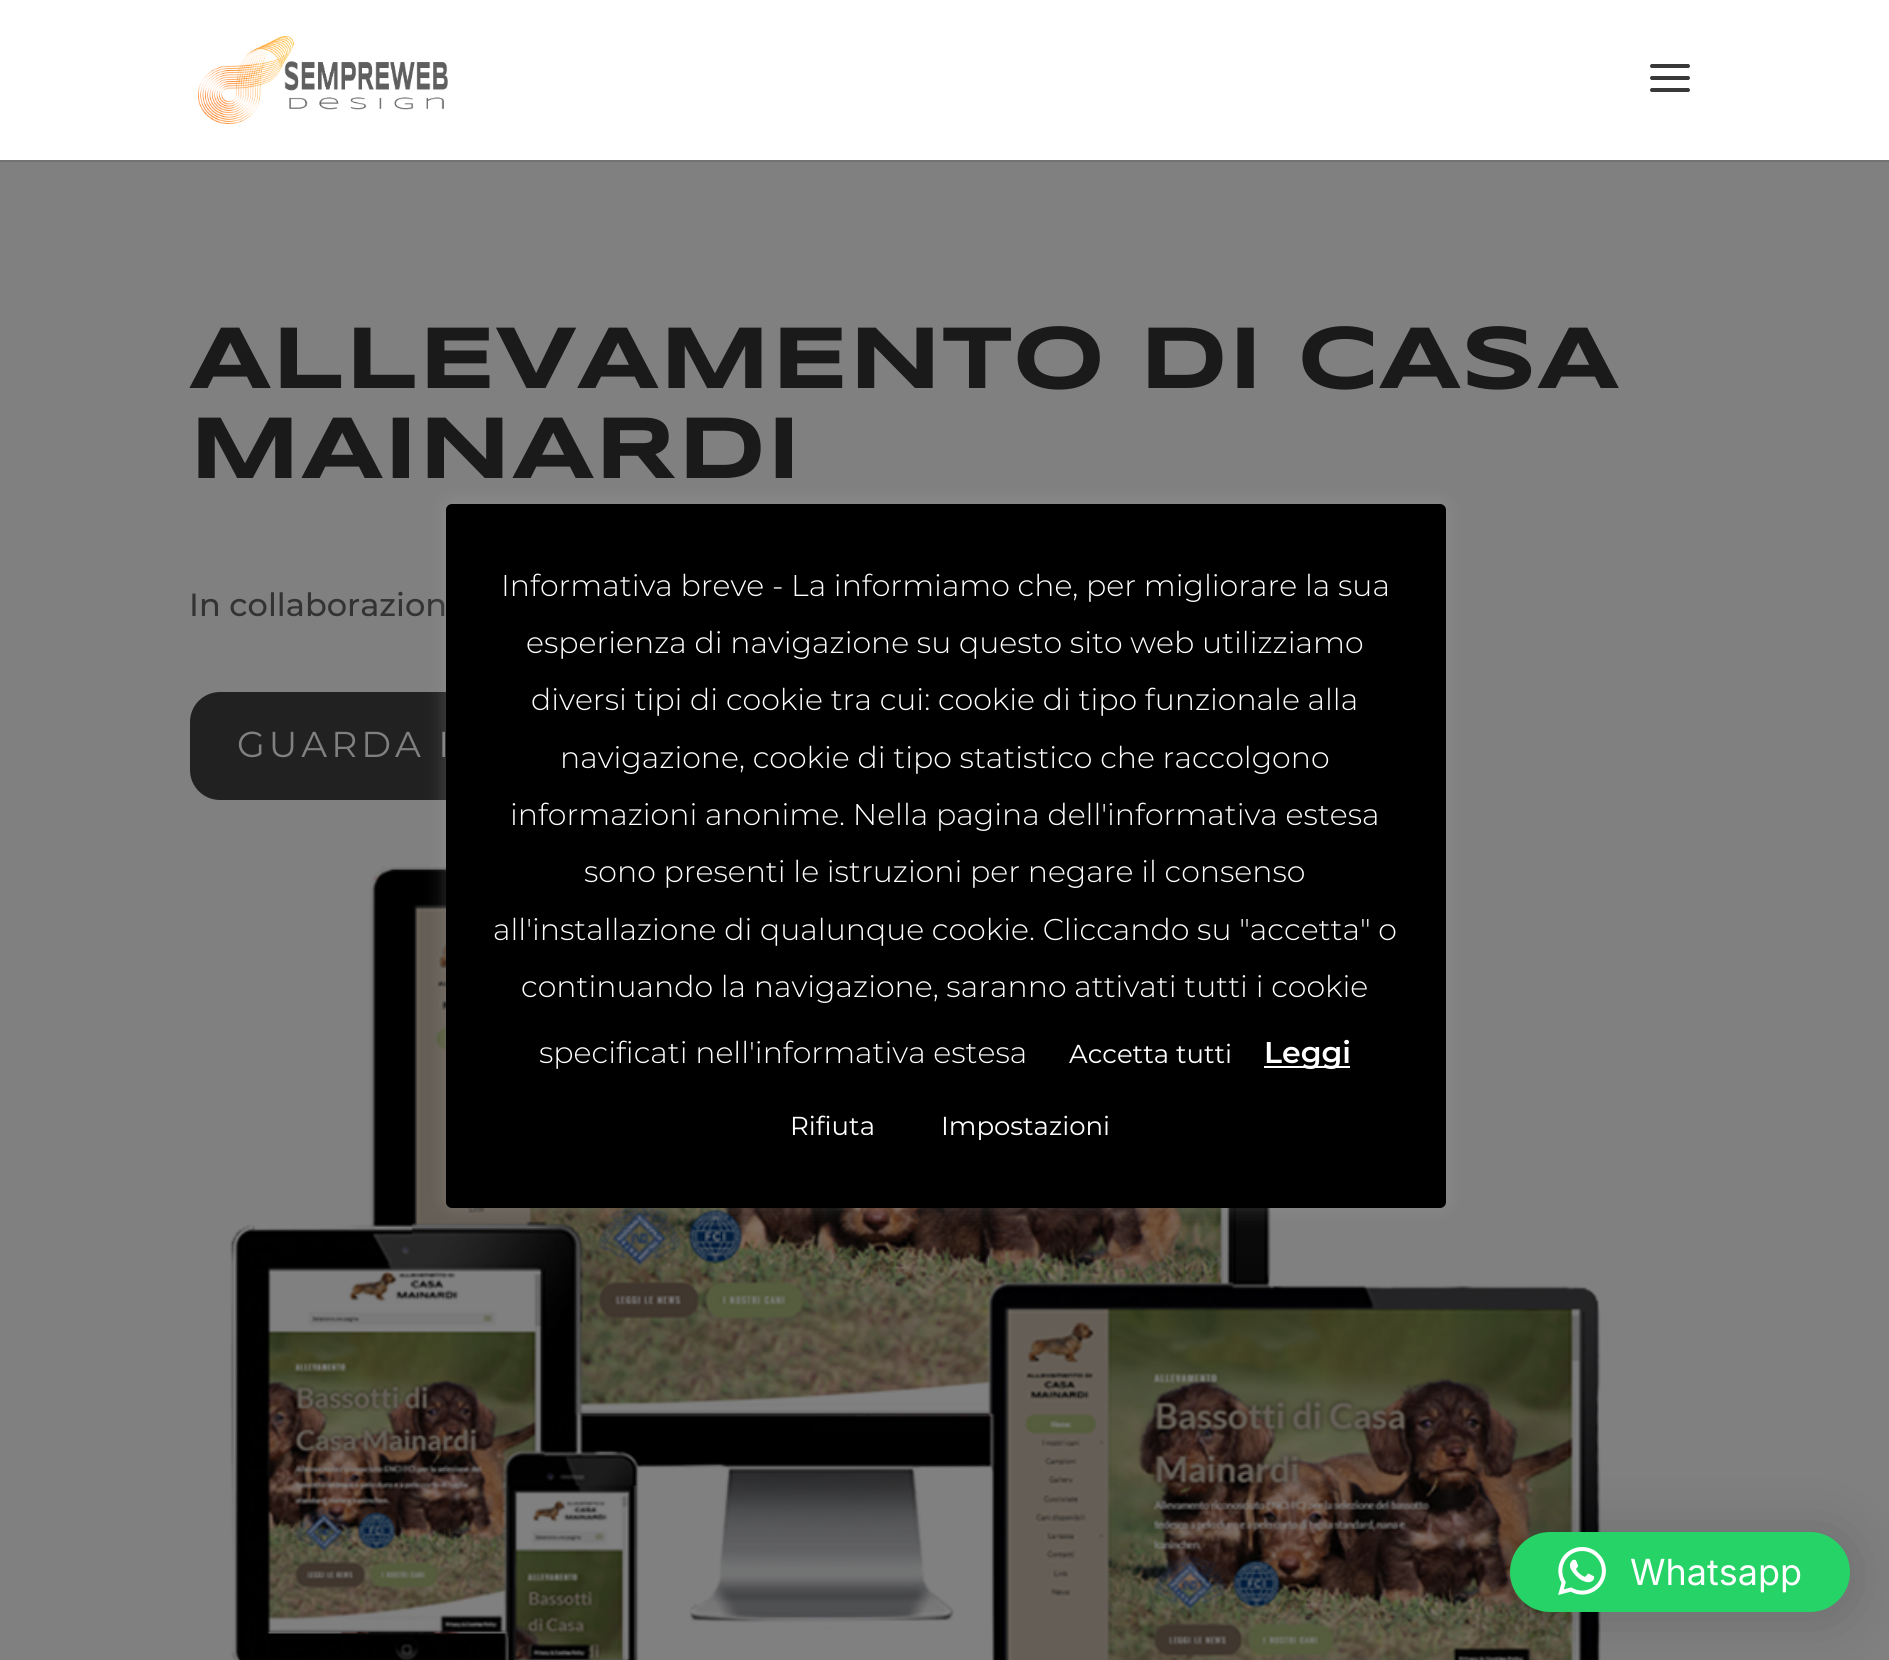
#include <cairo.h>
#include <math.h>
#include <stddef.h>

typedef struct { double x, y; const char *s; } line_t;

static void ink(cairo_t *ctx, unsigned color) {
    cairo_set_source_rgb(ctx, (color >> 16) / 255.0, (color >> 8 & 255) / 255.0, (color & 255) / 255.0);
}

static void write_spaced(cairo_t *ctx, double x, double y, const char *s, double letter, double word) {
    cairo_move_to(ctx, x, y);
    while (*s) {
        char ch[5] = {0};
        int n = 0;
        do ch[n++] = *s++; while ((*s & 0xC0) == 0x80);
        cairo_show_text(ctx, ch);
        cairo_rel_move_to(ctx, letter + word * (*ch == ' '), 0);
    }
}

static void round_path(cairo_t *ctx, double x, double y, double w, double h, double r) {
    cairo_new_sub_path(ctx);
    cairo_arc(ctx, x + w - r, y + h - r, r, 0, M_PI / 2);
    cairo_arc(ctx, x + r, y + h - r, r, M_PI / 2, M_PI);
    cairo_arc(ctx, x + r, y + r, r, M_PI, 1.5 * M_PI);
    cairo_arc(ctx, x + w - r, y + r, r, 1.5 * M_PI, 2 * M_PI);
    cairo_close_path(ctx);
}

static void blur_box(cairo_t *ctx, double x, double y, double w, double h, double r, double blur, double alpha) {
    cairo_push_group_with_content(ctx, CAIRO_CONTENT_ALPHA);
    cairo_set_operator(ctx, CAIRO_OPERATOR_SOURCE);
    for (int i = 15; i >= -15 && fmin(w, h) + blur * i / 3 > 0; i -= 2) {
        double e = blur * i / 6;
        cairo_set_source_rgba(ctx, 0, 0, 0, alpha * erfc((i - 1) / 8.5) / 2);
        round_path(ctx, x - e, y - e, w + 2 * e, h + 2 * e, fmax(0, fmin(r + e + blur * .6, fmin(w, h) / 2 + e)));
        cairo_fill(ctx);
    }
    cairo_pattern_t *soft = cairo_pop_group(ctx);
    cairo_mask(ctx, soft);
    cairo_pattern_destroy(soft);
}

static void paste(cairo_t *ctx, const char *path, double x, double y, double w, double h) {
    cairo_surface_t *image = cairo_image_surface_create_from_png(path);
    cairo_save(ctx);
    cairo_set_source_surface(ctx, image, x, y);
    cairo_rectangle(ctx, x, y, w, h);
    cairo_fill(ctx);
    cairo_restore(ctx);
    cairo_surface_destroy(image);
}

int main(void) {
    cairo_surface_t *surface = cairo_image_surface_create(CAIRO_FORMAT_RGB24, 1889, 1660);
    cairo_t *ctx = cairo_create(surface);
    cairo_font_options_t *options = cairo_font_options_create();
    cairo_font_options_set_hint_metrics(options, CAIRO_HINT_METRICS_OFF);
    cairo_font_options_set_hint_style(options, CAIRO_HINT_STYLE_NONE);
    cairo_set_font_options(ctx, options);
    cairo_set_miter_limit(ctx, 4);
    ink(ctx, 0x808080);
    cairo_paint(ctx);
    ink(ctx, 0x737373);
    cairo_rectangle(ctx, 0, 160, 1889, 2);
    cairo_fill(ctx);
    ink(ctx, 0xFFFFFF);
    cairo_rectangle(ctx, 0, 0, 1889, 160);
    cairo_fill(ctx);
    paste(ctx, "media/1.png", 198, 36, 250, 88);
    paste(ctx, "media/2.png", 1650, 64, 40, 28);
    cairo_select_font_face(ctx, "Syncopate", CAIRO_FONT_SLANT_NORMAL, CAIRO_FONT_WEIGHT_BOLD);
    cairo_set_font_size(ctx, 90);
    ink(ctx, 0x1A1A1A);
    cairo_move_to(ctx, 189, 388);
    cairo_show_text(ctx, "ALLEVAMENTO DI CASA");
    cairo_move_to(ctx, 189, 478);
    cairo_show_text(ctx, "MAINARDI");
    cairo_select_font_face(ctx, "Montserrat Medium", CAIRO_FONT_SLANT_NORMAL, CAIRO_FONT_WEIGHT_NORMAL);
    cairo_set_font_size(ctx, 32);
    ink(ctx, 0x333333);
    cairo_move_to(ctx, 189, 616);
    cairo_show_text(ctx, "In collaborazion");
    ink(ctx, 0x212121);
    round_path(ctx, 196, 698, 438, 96, 24);
    cairo_fill_preserve(ctx);
    cairo_set_line_width(ctx, 12);
    cairo_stroke(ctx);
    cairo_select_font_face(ctx, "Montserrat", CAIRO_FONT_SLANT_NORMAL, CAIRO_FONT_WEIGHT_NORMAL);
    cairo_set_font_size(ctx, 36);
    ink(ctx, 0x808080);
    write_spaced(ctx, 237, 757, "GUARDA I", 4, 0);
    paste(ctx, "media/3.png", 230, 866, 1371, 794);
    ink(ctx, 0xACABAB);
    blur_box(ctx, 446, 502, 1000, 704, 6, 10, 0.3);
    ink(ctx, 0x000000);
    round_path(ctx, 446, 504, 1000, 704, 6);
    cairo_fill(ctx);
    cairo_select_font_face(ctx, "Montserrat Light", CAIRO_FONT_SLANT_NORMAL, CAIRO_FONT_WEIGHT_NORMAL);
    cairo_set_font_size(ctx, 30);
    ink(ctx, 0xFFFFFF);
    {
        static const line_t items[] = {
            {501, 596, "Informativa breve - La informiamo che, per migliorare la sua"},
            {526, 653, "esperienza di navigazione su questo sito web utilizziamo"},
            {531, 710, "diversi tipi di cookie tra cui: cookie di tipo funzionale alla"},
            {560, 768, "navigazione, cookie di tipo statistico che raccolgono"},
            {510, 825, "informazioni anonime. Nella pagina dell'informativa estesa"},
            {584, 882, "sono presenti le istruzioni per negare il consenso"},
            {493, 940, "all'installazione di qualunque cookie. Cliccando su \"accetta\" o"},
            {521, 997, "continuando la navigazione, saranno attivati tutti i cookie"},
            {539, 1063, "specificati nell'informativa estesa"},
        };
        for (size_t i = 0; i < sizeof items / sizeof *items; i++) {
            cairo_move_to(ctx, items[i].x, items[i].y);
            cairo_show_text(ctx, items[i].s);
        }
    }
    cairo_select_font_face(ctx, "Montserrat", CAIRO_FONT_SLANT_NORMAL, CAIRO_FONT_WEIGHT_NORMAL);
    cairo_set_font_size(ctx, 26);
    cairo_move_to(ctx, 1069, 1063);
    cairo_show_text(ctx, "Accetta tutti");
    cairo_rectangle(ctx, 1264, 1066, 86, 2);
    cairo_fill(ctx);
    cairo_select_font_face(ctx, "Montserrat SemiBold", CAIRO_FONT_SLANT_NORMAL, CAIRO_FONT_WEIGHT_NORMAL);
    cairo_set_font_size(ctx, 30);
    cairo_move_to(ctx, 1264, 1063);
    cairo_show_text(ctx, "Leggi");
    cairo_select_font_face(ctx, "Montserrat", CAIRO_FONT_SLANT_NORMAL, CAIRO_FONT_WEIGHT_NORMAL);
    cairo_set_font_size(ctx, 26);
    cairo_move_to(ctx, 790, 1135);
    cairo_show_text(ctx, "Rifiuta");
    cairo_move_to(ctx, 941, 1135);
    cairo_show_text(ctx, "Impostazioni");
    ink(ctx, 0x000000);
    blur_box(ctx, 1510, 1536, 340, 80, 40, 32, 0.16);
    ink(ctx, 0x25D366);
    round_path(ctx, 1510, 1532, 340, 80, 40);
    cairo_fill(ctx);
    paste(ctx, "media/4.png", 1558, 1547, 48, 48);
    cairo_select_font_face(ctx, "Inter", CAIRO_FONT_SLANT_NORMAL, CAIRO_FONT_WEIGHT_NORMAL);
    cairo_set_font_size(ctx, 36);
    ink(ctx, 0xFFFFFF);
    cairo_move_to(ctx, 1630, 1585);
    cairo_show_text(ctx, "Whatsapp");
    cairo_surface_write_to_png(surface, "image.png");
    cairo_font_options_destroy(options);
    cairo_destroy(ctx);
    cairo_surface_destroy(surface);
    return 0;
}
